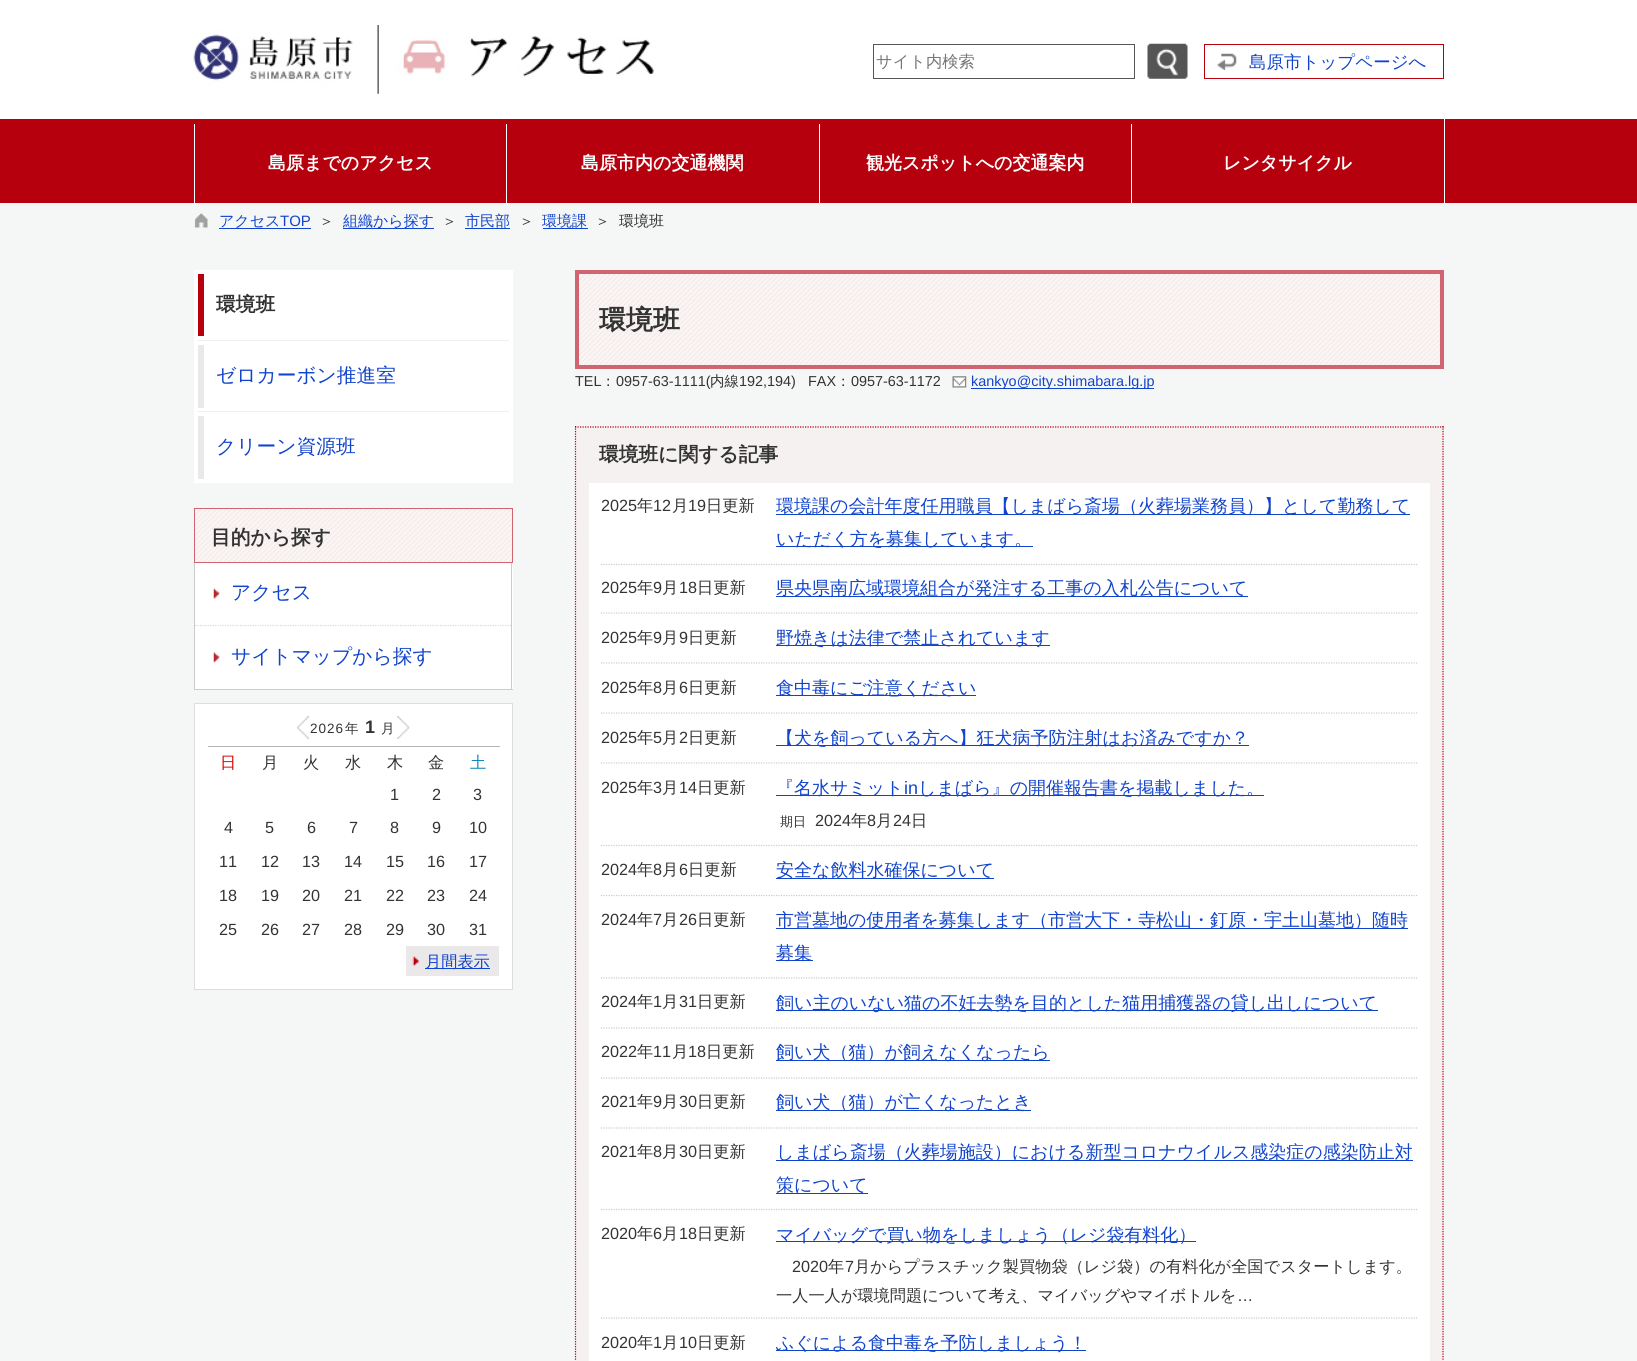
#include <cairo.h>
#include <math.h>
#include <stddef.h>

typedef struct { double x, y; const char *s; } line_t;
typedef struct { double x, y, w, h; unsigned color; } box_t;

static void ink(cairo_t *ctx, unsigned color) {
    cairo_set_source_rgb(ctx, (color >> 16) / 255.0, (color >> 8 & 255) / 255.0, (color & 255) / 255.0);
}

static void write_spaced(cairo_t *ctx, double x, double y, const char *s, double letter, double word) {
    cairo_move_to(ctx, x, y);
    while (*s) {
        char ch[5] = {0};
        int n = 0;
        do ch[n++] = *s++; while ((*s & 0xC0) == 0x80);
        cairo_show_text(ctx, ch);
        cairo_rel_move_to(ctx, letter + word * (*ch == ' '), 0);
    }
}

static void paste(cairo_t *ctx, const char *path, double x, double y, double w, double h) {
    cairo_surface_t *image = cairo_image_surface_create_from_png(path);
    cairo_save(ctx);
    cairo_set_source_surface(ctx, image, x, y);
    cairo_rectangle(ctx, x, y, w, h);
    cairo_fill(ctx);
    cairo_restore(ctx);
    cairo_surface_destroy(image);
}

int main(void) {
    cairo_surface_t *surface = cairo_image_surface_create(CAIRO_FORMAT_RGB24, 1637, 1361);
    cairo_t *ctx = cairo_create(surface);
    cairo_font_options_t *options = cairo_font_options_create();
    cairo_font_options_set_hint_metrics(options, CAIRO_HINT_METRICS_OFF);
    cairo_font_options_set_hint_style(options, CAIRO_HINT_STYLE_NONE);
    cairo_set_font_options(ctx, options);
    cairo_set_miter_limit(ctx, 4);
    ink(ctx, 0xF5F7F6);
    cairo_paint(ctx);
    ink(ctx, 0xFFFFFF);
    cairo_rectangle(ctx, 0, 0, 1637, 119);
    cairo_fill(ctx);
    paste(ctx, "media/1.png", 193, 25, 461, 69);
    cairo_rectangle(ctx, 873.5, 44.5, 261, 34);
    ink(ctx, 0x555555);
    cairo_set_line_width(ctx, 1);
    cairo_stroke(ctx);
    cairo_select_font_face(ctx, "WenQuanYi Zen Hei Medium", CAIRO_FONT_SLANT_NORMAL, CAIRO_FONT_WEIGHT_NORMAL);
    cairo_set_font_size(ctx, 16.25);
    ink(ctx, 0x757575);
    cairo_move_to(ctx, 876, 67);
    cairo_show_text(ctx, "サイト内検索");
    paste(ctx, "media/2.png", 1147, 43, 41, 36);
    cairo_rectangle(ctx, 1204.5, 44.5, 239, 34);
    ink(ctx, 0xB9000E);
    cairo_stroke(ctx);
    paste(ctx, "media/3.png", 1217, 53, 20, 17);
    cairo_set_font_size(ctx, 17.5);
    ink(ctx, 0x1144CC);
    cairo_move_to(ctx, 1249, 68);
    cairo_show_text(ctx, "島原市トップページへ");
    {
        static const box_t items[] = {
            {0, 119, 1637, 84, 0xB6000D},
            {1444, 119, 1, 84, 0xFFFFFF},
            {194, 124, 1, 79, 0xFFFFFF},
        };
        for (size_t i = 0; i < sizeof items / sizeof *items; i++) {
            ink(ctx, items[i].color);
            cairo_rectangle(ctx, items[i].x, items[i].y, items[i].w, items[i].h);
            cairo_fill(ctx);
        }
    }
    cairo_select_font_face(ctx, "WenQuanYi Zen Hei", CAIRO_FONT_SLANT_NORMAL, CAIRO_FONT_WEIGHT_BOLD);
    cairo_set_font_size(ctx, 18);
    cairo_move_to(ctx, 268, 169);
    cairo_show_text(ctx, "島原までのアクセス");
    cairo_rectangle(ctx, 506, 124, 1, 79);
    cairo_fill(ctx);
    cairo_move_to(ctx, 581, 169);
    cairo_show_text(ctx, "島原市内の交通機関");
    cairo_rectangle(ctx, 819, 124, 1, 79);
    cairo_fill(ctx);
    cairo_move_to(ctx, 866, 169);
    cairo_show_text(ctx, "観光スポットへの交通案内");
    cairo_rectangle(ctx, 1131, 124, 1, 79);
    cairo_fill(ctx);
    cairo_move_to(ctx, 1223, 169);
    cairo_show_text(ctx, "レンタサイクル");
    paste(ctx, "media/4.png", 194, 213, 14, 15);
    cairo_select_font_face(ctx, "WenQuanYi Zen Hei Medium", CAIRO_FONT_SLANT_NORMAL, CAIRO_FONT_WEIGHT_NORMAL);
    cairo_set_font_size(ctx, 15);
    ink(ctx, 0x1144CC);
    cairo_move_to(ctx, 219, 226);
    cairo_show_text(ctx, "アクセス");
    cairo_rectangle(ctx, 219, 228, 92, 1);
    cairo_fill(ctx);
    cairo_select_font_face(ctx, "Liberation Sans", CAIRO_FONT_SLANT_NORMAL, CAIRO_FONT_WEIGHT_NORMAL);
    cairo_move_to(ctx, 280, 226);
    cairo_show_text(ctx, "TOP");
    cairo_select_font_face(ctx, "WenQuanYi Zen Hei Medium", CAIRO_FONT_SLANT_NORMAL, CAIRO_FONT_WEIGHT_NORMAL);
    ink(ctx, 0x333333);
    cairo_move_to(ctx, 319, 226);
    cairo_show_text(ctx, "＞");
    ink(ctx, 0x1144CC);
    cairo_rectangle(ctx, 343, 228, 91, 1);
    cairo_fill(ctx);
    cairo_move_to(ctx, 343, 226);
    cairo_show_text(ctx, "組織から探す");
    ink(ctx, 0x333333);
    cairo_move_to(ctx, 442, 226);
    cairo_show_text(ctx, "＞");
    ink(ctx, 0x1144CC);
    cairo_move_to(ctx, 465, 226);
    cairo_show_text(ctx, "市民部");
    cairo_rectangle(ctx, 465, 228, 45, 1);
    cairo_fill(ctx);
    ink(ctx, 0x333333);
    cairo_move_to(ctx, 519, 226);
    cairo_show_text(ctx, "＞");
    ink(ctx, 0x1144CC);
    cairo_move_to(ctx, 542, 226);
    cairo_show_text(ctx, "環境課");
    cairo_rectangle(ctx, 543, 228, 45, 1);
    cairo_fill(ctx);
    ink(ctx, 0x333333);
    cairo_move_to(ctx, 595, 226);
    cairo_show_text(ctx, "＞");
    cairo_move_to(ctx, 619, 226);
    cairo_show_text(ctx, "環境班");
    ink(ctx, 0xFFFFFF);
    cairo_rectangle(ctx, 194, 270, 319, 213);
    cairo_fill(ctx);
    ink(ctx, 0xB6000D);
    cairo_rectangle(ctx, 198, 274, 6, 62);
    cairo_fill(ctx);
    cairo_select_font_face(ctx, "WenQuanYi Zen Hei", CAIRO_FONT_SLANT_NORMAL, CAIRO_FONT_WEIGHT_BOLD);
    cairo_set_font_size(ctx, 19.75);
    ink(ctx, 0x333333);
    cairo_move_to(ctx, 216, 311);
    cairo_show_text(ctx, "環境班");
    ink(ctx, 0xEEEEEE);
    cairo_rectangle(ctx, 198, 340, 311, 1);
    cairo_fill(ctx);
    ink(ctx, 0xEAE8E8);
    cairo_rectangle(ctx, 198, 345, 6, 63);
    cairo_fill(ctx);
    cairo_select_font_face(ctx, "WenQuanYi Zen Hei Medium", CAIRO_FONT_SLANT_NORMAL, CAIRO_FONT_WEIGHT_NORMAL);
    ink(ctx, 0x1144CC);
    cairo_move_to(ctx, 216, 382);
    cairo_show_text(ctx, "ゼロカーボン推進室");
    ink(ctx, 0xEEEEEE);
    cairo_rectangle(ctx, 198, 411, 311, 1);
    cairo_fill(ctx);
    ink(ctx, 0xEAE8E8);
    cairo_rectangle(ctx, 198, 416, 6, 63);
    cairo_fill(ctx);
    ink(ctx, 0x1144CC);
    cairo_move_to(ctx, 216, 453);
    cairo_show_text(ctx, "クリーン資源班");
    paste(ctx, "media/5.png", 194, 507, 319, 55);
    cairo_rectangle(ctx, 194.5, 508.5, 318, 54);
    ink(ctx, 0xD16471);
    cairo_stroke(ctx);
    cairo_select_font_face(ctx, "WenQuanYi Zen Hei", CAIRO_FONT_SLANT_NORMAL, CAIRO_FONT_WEIGHT_BOLD);
    ink(ctx, 0x333333);
    cairo_move_to(ctx, 211, 544);
    cairo_show_text(ctx, "目的から探す");
    {
        static const box_t items[] = {
            {195, 563, 318, 126, 0xFFFFFF},
            {511, 563, 1, 127, 0xCCCCCC},
            {194, 689, 319, 1, 0xCCCCCC},
            {194, 563, 1, 127, 0xCCCCCC},
        };
        for (size_t i = 0; i < sizeof items / sizeof *items; i++) {
            ink(ctx, items[i].color);
            cairo_rectangle(ctx, items[i].x, items[i].y, items[i].w, items[i].h);
            cairo_fill(ctx);
        }
    }
    paste(ctx, "media/6.png", 213, 588, 7, 11);
    cairo_select_font_face(ctx, "WenQuanYi Zen Hei Medium", CAIRO_FONT_SLANT_NORMAL, CAIRO_FONT_WEIGHT_NORMAL);
    ink(ctx, 0x1144CC);
    cairo_move_to(ctx, 231, 599);
    cairo_show_text(ctx, "アクセス");
    cairo_new_path(ctx);
    cairo_move_to(ctx, 195, 625.5);
    cairo_line_to(ctx, 511, 625.5);
    ink(ctx, 0xD9D9D9);
    cairo_set_line_width(ctx, 1.2);
    cairo_set_dash(ctx, (double[]){1.25, 1.25}, 2, 0);
    cairo_stroke(ctx);
    paste(ctx, "media/7.png", 213, 652, 7, 11);
    ink(ctx, 0x1144CC);
    cairo_move_to(ctx, 231, 663);
    cairo_show_text(ctx, "サイトマップから探す");
    ink(ctx, 0xFFFFFF);
    cairo_rectangle(ctx, 194.5, 703.5, 318, 286);
    cairo_fill_preserve(ctx);
    ink(ctx, 0xDDDDDD);
    cairo_set_line_width(ctx, 1);
    cairo_set_dash(ctx, NULL, 0, 0);
    cairo_stroke(ctx);
    paste(ctx, "media/8.png", 296, 716, 14, 23);
    paste(ctx, "media/9.png", 297, 716, 12, 23);
    cairo_select_font_face(ctx, "Liberation Sans", CAIRO_FONT_SLANT_NORMAL, CAIRO_FONT_WEIGHT_NORMAL);
    cairo_set_font_size(ctx, 13.5);
    ink(ctx, 0x333333);
    write_spaced(ctx, 310, 733, "2026", 1, 0);
    cairo_select_font_face(ctx, "WenQuanYi Zen Hei Medium", CAIRO_FONT_SLANT_NORMAL, CAIRO_FONT_WEIGHT_NORMAL);
    write_spaced(ctx, 345, 733, "年", 1, 0);
    cairo_select_font_face(ctx, "Liberation Sans", CAIRO_FONT_SLANT_NORMAL, CAIRO_FONT_WEIGHT_BOLD);
    cairo_set_font_size(ctx, 18);
    write_spaced(ctx, 365, 733, "1", 6, 0);
    cairo_select_font_face(ctx, "WenQuanYi Zen Hei Medium", CAIRO_FONT_SLANT_NORMAL, CAIRO_FONT_WEIGHT_NORMAL);
    cairo_set_font_size(ctx, 13.5);
    write_spaced(ctx, 381, 733, "月", 1, 0);
    paste(ctx, "media/10.png", 397, 716, 13, 23);
    paste(ctx, "media/11.png", 397, 716, 12, 23);
    cairo_set_font_size(ctx, 16.2);
    ink(ctx, 0xDD0000);
    cairo_move_to(ctx, 220, 768);
    cairo_show_text(ctx, "日");
    ink(ctx, 0x333333);
    {
        static const line_t items[] = {
            {262, 768, "月"},
            {303, 768, "火"},
            {345, 768, "水"},
            {387, 768, "木"},
            {428, 768, "金"},
        };
        for (size_t i = 0; i < sizeof items / sizeof *items; i++) {
            cairo_move_to(ctx, items[i].x, items[i].y);
            cairo_show_text(ctx, items[i].s);
        }
    }
    ink(ctx, 0xB7B6B6);
    cairo_rectangle(ctx, 208, 746, 292, 1);
    cairo_fill(ctx);
    ink(ctx, 0x1587BD);
    cairo_move_to(ctx, 470, 768);
    cairo_show_text(ctx, "土");
    cairo_select_font_face(ctx, "Liberation Sans", CAIRO_FONT_SLANT_NORMAL, CAIRO_FONT_WEIGHT_NORMAL);
    ink(ctx, 0x333333);
    {
        static const line_t items[] = {
            {390, 800, "1"},
            {432, 800, "2"},
            {473, 800, "3"},
            {224, 833, "4"},
            {265, 833, "5"},
            {307, 833, "6"},
            {349, 833, "7"},
            {390, 833, "8"},
            {432, 833, "9"},
            {469, 833, "10"},
            {219, 867, "11"},
            {261, 867, "12"},
            {302, 867, "13"},
            {344, 867, "14"},
            {386, 867, "15"},
            {427, 867, "16"},
            {469, 867, "17"},
            {219, 901, "18"},
            {261, 901, "19"},
            {302, 901, "20"},
            {344, 901, "21"},
            {386, 901, "22"},
            {427, 901, "23"},
            {469, 901, "24"},
            {219, 935, "25"},
            {261, 935, "26"},
            {302, 935, "27"},
            {344, 935, "28"},
            {386, 935, "29"},
            {427, 935, "30"},
            {469, 935, "31"},
        };
        for (size_t i = 0; i < sizeof items / sizeof *items; i++) {
            cairo_move_to(ctx, items[i].x, items[i].y);
            cairo_show_text(ctx, items[i].s);
        }
    }
    ink(ctx, 0xEAE8E8);
    cairo_rectangle(ctx, 406, 946, 93, 30);
    cairo_fill(ctx);
    paste(ctx, "media/12.png", 412, 956, 7, 11);
    ink(ctx, 0x1144CC);
    cairo_rectangle(ctx, 425, 968, 65, 1);
    cairo_fill(ctx);
    cairo_select_font_face(ctx, "WenQuanYi Zen Hei Medium", CAIRO_FONT_SLANT_NORMAL, CAIRO_FONT_WEIGHT_NORMAL);
    cairo_move_to(ctx, 425, 967);
    cairo_show_text(ctx, "月間表示");
    paste(ctx, "media/13.png", 579, 274, 861, 91);
    cairo_rectangle(ctx, 577, 272, 865, 95);
    ink(ctx, 0xD16471);
    cairo_set_line_width(ctx, 4);
    cairo_stroke(ctx);
    cairo_select_font_face(ctx, "WenQuanYi Zen Hei", CAIRO_FONT_SLANT_NORMAL, CAIRO_FONT_WEIGHT_BOLD);
    cairo_set_font_size(ctx, 27);
    ink(ctx, 0x333333);
    cairo_move_to(ctx, 599, 329);
    cairo_show_text(ctx, "環境班");
    cairo_select_font_face(ctx, "Liberation Sans", CAIRO_FONT_SLANT_NORMAL, CAIRO_FONT_WEIGHT_NORMAL);
    cairo_set_font_size(ctx, 14.4);
    cairo_move_to(ctx, 575, 386);
    cairo_show_text(ctx, "TEL");
    cairo_select_font_face(ctx, "WenQuanYi Zen Hei Medium", CAIRO_FONT_SLANT_NORMAL, CAIRO_FONT_WEIGHT_NORMAL);
    cairo_move_to(ctx, 601, 386);
    cairo_show_text(ctx, "：");
    cairo_select_font_face(ctx, "Liberation Sans", CAIRO_FONT_SLANT_NORMAL, CAIRO_FONT_WEIGHT_NORMAL);
    cairo_move_to(ctx, 616, 386);
    cairo_show_text(ctx, "0957-63-1111(");
    cairo_select_font_face(ctx, "WenQuanYi Zen Hei Medium", CAIRO_FONT_SLANT_NORMAL, CAIRO_FONT_WEIGHT_NORMAL);
    cairo_move_to(ctx, 710, 386);
    cairo_show_text(ctx, "内線");
    cairo_select_font_face(ctx, "Liberation Sans", CAIRO_FONT_SLANT_NORMAL, CAIRO_FONT_WEIGHT_NORMAL);
    cairo_move_to(ctx, 739, 386);
    cairo_show_text(ctx, "192,194)");
    cairo_move_to(ctx, 808, 386);
    cairo_show_text(ctx, "FAX");
    cairo_select_font_face(ctx, "WenQuanYi Zen Hei Medium", CAIRO_FONT_SLANT_NORMAL, CAIRO_FONT_WEIGHT_NORMAL);
    cairo_move_to(ctx, 836, 386);
    cairo_show_text(ctx, "：");
    cairo_select_font_face(ctx, "Liberation Sans", CAIRO_FONT_SLANT_NORMAL, CAIRO_FONT_WEIGHT_NORMAL);
    cairo_move_to(ctx, 851, 386);
    cairo_show_text(ctx, "0957-63-1172");
    paste(ctx, "media/14.png", 952, 376, 15, 12);
    ink(ctx, 0x1144CC);
    cairo_rectangle(ctx, 971, 388, 183, 1);
    cairo_fill(ctx);
    cairo_move_to(ctx, 971, 386);
    cairo_show_text(ctx, "kankyo@city.shimabara.lg.jp");
    ink(ctx, 0xF5F1F0);
    cairo_rectangle(ctx, 575, 426, 869, 935);
    cairo_fill(ctx);
    cairo_new_path(ctx);
    cairo_move_to(ctx, 575, 427);
    cairo_line_to(ctx, 1444, 427);
    ink(ctx, 0xB50017);
    cairo_set_line_width(ctx, 1.2);
    cairo_set_dash(ctx, (double[]){1.25, 1.25}, 2, 0);
    cairo_stroke(ctx);
    cairo_new_path(ctx);
    cairo_move_to(ctx, 1443, 426);
    cairo_line_to(ctx, 1443, 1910);
    cairo_stroke(ctx);
    cairo_new_path(ctx);
    cairo_move_to(ctx, 575.5, 426);
    cairo_line_to(ctx, 575.5, 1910);
    cairo_stroke(ctx);
    cairo_select_font_face(ctx, "WenQuanYi Zen Hei", CAIRO_FONT_SLANT_NORMAL, CAIRO_FONT_WEIGHT_BOLD);
    cairo_set_font_size(ctx, 19.75);
    ink(ctx, 0x333333);
    cairo_move_to(ctx, 599, 461);
    cairo_show_text(ctx, "環境班に関する記事");
    ink(ctx, 0xFFFFFF);
    cairo_rectangle(ctx, 589, 483, 841, 878);
    cairo_fill(ctx);
    cairo_select_font_face(ctx, "Liberation Sans", CAIRO_FONT_SLANT_NORMAL, CAIRO_FONT_WEIGHT_NORMAL);
    cairo_set_font_size(ctx, 16.2);
    ink(ctx, 0x333333);
    cairo_move_to(ctx, 601, 511);
    cairo_show_text(ctx, "2025");
    cairo_select_font_face(ctx, "WenQuanYi Zen Hei Medium", CAIRO_FONT_SLANT_NORMAL, CAIRO_FONT_WEIGHT_NORMAL);
    cairo_move_to(ctx, 637, 511);
    cairo_show_text(ctx, "年");
    cairo_select_font_face(ctx, "Liberation Sans", CAIRO_FONT_SLANT_NORMAL, CAIRO_FONT_WEIGHT_NORMAL);
    cairo_move_to(ctx, 653, 511);
    cairo_show_text(ctx, "12");
    cairo_select_font_face(ctx, "WenQuanYi Zen Hei Medium", CAIRO_FONT_SLANT_NORMAL, CAIRO_FONT_WEIGHT_NORMAL);
    cairo_move_to(ctx, 672, 511);
    cairo_show_text(ctx, "月");
    cairo_select_font_face(ctx, "Liberation Sans", CAIRO_FONT_SLANT_NORMAL, CAIRO_FONT_WEIGHT_NORMAL);
    cairo_move_to(ctx, 688, 511);
    cairo_show_text(ctx, "19");
    cairo_select_font_face(ctx, "WenQuanYi Zen Hei Medium", CAIRO_FONT_SLANT_NORMAL, CAIRO_FONT_WEIGHT_NORMAL);
    cairo_move_to(ctx, 706, 511);
    cairo_show_text(ctx, "日更新");
    ink(ctx, 0x1144CC);
    cairo_rectangle(ctx, 776, 514, 634, 1);
    cairo_fill(ctx);
    cairo_set_font_size(ctx, 18);
    cairo_move_to(ctx, 776, 512);
    cairo_show_text(ctx, "環境課の会計年度任用職員【しまばら斎場（火葬場業務員）】として勤務して");
    cairo_rectangle(ctx, 776, 546, 257, 1);
    cairo_fill(ctx);
    cairo_move_to(ctx, 776, 545);
    cairo_show_text(ctx, "いただく方を募集しています。");
    cairo_new_path(ctx);
    cairo_move_to(ctx, 601, 564.5);
    cairo_line_to(ctx, 1417.5, 564.5);
    ink(ctx, 0xCCCCCC);
    cairo_stroke(ctx);
    cairo_select_font_face(ctx, "Liberation Sans", CAIRO_FONT_SLANT_NORMAL, CAIRO_FONT_WEIGHT_NORMAL);
    cairo_set_font_size(ctx, 16.2);
    ink(ctx, 0x333333);
    cairo_move_to(ctx, 601, 593);
    cairo_show_text(ctx, "2025");
    cairo_select_font_face(ctx, "WenQuanYi Zen Hei Medium", CAIRO_FONT_SLANT_NORMAL, CAIRO_FONT_WEIGHT_NORMAL);
    cairo_move_to(ctx, 637, 593);
    cairo_show_text(ctx, "年");
    cairo_select_font_face(ctx, "Liberation Sans", CAIRO_FONT_SLANT_NORMAL, CAIRO_FONT_WEIGHT_NORMAL);
    cairo_move_to(ctx, 653, 593);
    cairo_show_text(ctx, "9");
    cairo_select_font_face(ctx, "WenQuanYi Zen Hei Medium", CAIRO_FONT_SLANT_NORMAL, CAIRO_FONT_WEIGHT_NORMAL);
    cairo_move_to(ctx, 662, 593);
    cairo_show_text(ctx, "月");
    cairo_select_font_face(ctx, "Liberation Sans", CAIRO_FONT_SLANT_NORMAL, CAIRO_FONT_WEIGHT_NORMAL);
    cairo_move_to(ctx, 679, 593);
    cairo_show_text(ctx, "18");
    cairo_select_font_face(ctx, "WenQuanYi Zen Hei Medium", CAIRO_FONT_SLANT_NORMAL, CAIRO_FONT_WEIGHT_NORMAL);
    cairo_move_to(ctx, 697, 593);
    cairo_show_text(ctx, "日更新");
    ink(ctx, 0x1144CC);
    cairo_rectangle(ctx, 776, 596, 472, 1);
    cairo_fill(ctx);
    cairo_set_font_size(ctx, 18);
    cairo_move_to(ctx, 776, 594);
    cairo_show_text(ctx, "県央県南広域環境組合が発注する工事の入札公告について");
    cairo_new_path(ctx);
    cairo_move_to(ctx, 601, 613);
    cairo_line_to(ctx, 1417.5, 613);
    ink(ctx, 0xCCCCCC);
    cairo_stroke(ctx);
    cairo_select_font_face(ctx, "Liberation Sans", CAIRO_FONT_SLANT_NORMAL, CAIRO_FONT_WEIGHT_NORMAL);
    cairo_set_font_size(ctx, 16.2);
    ink(ctx, 0x333333);
    cairo_move_to(ctx, 601, 643);
    cairo_show_text(ctx, "2025");
    cairo_select_font_face(ctx, "WenQuanYi Zen Hei Medium", CAIRO_FONT_SLANT_NORMAL, CAIRO_FONT_WEIGHT_NORMAL);
    cairo_move_to(ctx, 637, 643);
    cairo_show_text(ctx, "年");
    cairo_select_font_face(ctx, "Liberation Sans", CAIRO_FONT_SLANT_NORMAL, CAIRO_FONT_WEIGHT_NORMAL);
    cairo_move_to(ctx, 653, 643);
    cairo_show_text(ctx, "9");
    cairo_select_font_face(ctx, "WenQuanYi Zen Hei Medium", CAIRO_FONT_SLANT_NORMAL, CAIRO_FONT_WEIGHT_NORMAL);
    cairo_move_to(ctx, 662, 643);
    cairo_show_text(ctx, "月");
    cairo_select_font_face(ctx, "Liberation Sans", CAIRO_FONT_SLANT_NORMAL, CAIRO_FONT_WEIGHT_NORMAL);
    cairo_move_to(ctx, 679, 643);
    cairo_show_text(ctx, "9");
    cairo_select_font_face(ctx, "WenQuanYi Zen Hei Medium", CAIRO_FONT_SLANT_NORMAL, CAIRO_FONT_WEIGHT_NORMAL);
    cairo_move_to(ctx, 688, 643);
    cairo_show_text(ctx, "日更新");
    ink(ctx, 0x1144CC);
    cairo_rectangle(ctx, 776, 645, 274, 1);
    cairo_fill(ctx);
    cairo_set_font_size(ctx, 18);
    cairo_move_to(ctx, 776, 644);
    cairo_show_text(ctx, "野焼きは法律で禁止されています");
    cairo_new_path(ctx);
    cairo_move_to(ctx, 601, 663);
    cairo_line_to(ctx, 1417.5, 663);
    ink(ctx, 0xCCCCCC);
    cairo_stroke(ctx);
    cairo_select_font_face(ctx, "Liberation Sans", CAIRO_FONT_SLANT_NORMAL, CAIRO_FONT_WEIGHT_NORMAL);
    cairo_set_font_size(ctx, 16.2);
    ink(ctx, 0x333333);
    cairo_move_to(ctx, 601, 693);
    cairo_show_text(ctx, "2025");
    cairo_select_font_face(ctx, "WenQuanYi Zen Hei Medium", CAIRO_FONT_SLANT_NORMAL, CAIRO_FONT_WEIGHT_NORMAL);
    cairo_move_to(ctx, 637, 693);
    cairo_show_text(ctx, "年");
    cairo_select_font_face(ctx, "Liberation Sans", CAIRO_FONT_SLANT_NORMAL, CAIRO_FONT_WEIGHT_NORMAL);
    cairo_move_to(ctx, 653, 693);
    cairo_show_text(ctx, "8");
    cairo_select_font_face(ctx, "WenQuanYi Zen Hei Medium", CAIRO_FONT_SLANT_NORMAL, CAIRO_FONT_WEIGHT_NORMAL);
    cairo_move_to(ctx, 662, 693);
    cairo_show_text(ctx, "月");
    cairo_select_font_face(ctx, "Liberation Sans", CAIRO_FONT_SLANT_NORMAL, CAIRO_FONT_WEIGHT_NORMAL);
    cairo_move_to(ctx, 679, 693);
    cairo_show_text(ctx, "6");
    cairo_select_font_face(ctx, "WenQuanYi Zen Hei Medium", CAIRO_FONT_SLANT_NORMAL, CAIRO_FONT_WEIGHT_NORMAL);
    cairo_move_to(ctx, 688, 693);
    cairo_show_text(ctx, "日更新");
    ink(ctx, 0x1144CC);
    cairo_rectangle(ctx, 776, 695, 200, 1);
    cairo_fill(ctx);
    cairo_set_font_size(ctx, 18);
    cairo_move_to(ctx, 776, 694);
    cairo_show_text(ctx, "食中毒にご注意ください");
    cairo_new_path(ctx);
    cairo_move_to(ctx, 601, 713);
    cairo_line_to(ctx, 1417.5, 713);
    ink(ctx, 0xCCCCCC);
    cairo_stroke(ctx);
    cairo_select_font_face(ctx, "Liberation Sans", CAIRO_FONT_SLANT_NORMAL, CAIRO_FONT_WEIGHT_NORMAL);
    cairo_set_font_size(ctx, 16.2);
    ink(ctx, 0x333333);
    cairo_move_to(ctx, 601, 743);
    cairo_show_text(ctx, "2025");
    cairo_select_font_face(ctx, "WenQuanYi Zen Hei Medium", CAIRO_FONT_SLANT_NORMAL, CAIRO_FONT_WEIGHT_NORMAL);
    cairo_move_to(ctx, 637, 743);
    cairo_show_text(ctx, "年");
    cairo_select_font_face(ctx, "Liberation Sans", CAIRO_FONT_SLANT_NORMAL, CAIRO_FONT_WEIGHT_NORMAL);
    cairo_move_to(ctx, 653, 743);
    cairo_show_text(ctx, "5");
    cairo_select_font_face(ctx, "WenQuanYi Zen Hei Medium", CAIRO_FONT_SLANT_NORMAL, CAIRO_FONT_WEIGHT_NORMAL);
    cairo_move_to(ctx, 662, 743);
    cairo_show_text(ctx, "月");
    cairo_select_font_face(ctx, "Liberation Sans", CAIRO_FONT_SLANT_NORMAL, CAIRO_FONT_WEIGHT_NORMAL);
    cairo_move_to(ctx, 679, 743);
    cairo_show_text(ctx, "2");
    cairo_select_font_face(ctx, "WenQuanYi Zen Hei Medium", CAIRO_FONT_SLANT_NORMAL, CAIRO_FONT_WEIGHT_NORMAL);
    cairo_move_to(ctx, 688, 743);
    cairo_show_text(ctx, "日更新");
    ink(ctx, 0x1144CC);
    cairo_rectangle(ctx, 776, 745, 473, 1);
    cairo_fill(ctx);
    cairo_set_font_size(ctx, 18);
    cairo_move_to(ctx, 776, 744);
    cairo_show_text(ctx, "【犬を飼っている方へ】狂犬病予防注射はお済みですか？");
    cairo_new_path(ctx);
    cairo_move_to(ctx, 601, 763);
    cairo_line_to(ctx, 1417.5, 763);
    ink(ctx, 0xCCCCCC);
    cairo_stroke(ctx);
    cairo_select_font_face(ctx, "Liberation Sans", CAIRO_FONT_SLANT_NORMAL, CAIRO_FONT_WEIGHT_NORMAL);
    cairo_set_font_size(ctx, 16.2);
    ink(ctx, 0x333333);
    cairo_move_to(ctx, 601, 793);
    cairo_show_text(ctx, "2025");
    cairo_select_font_face(ctx, "WenQuanYi Zen Hei Medium", CAIRO_FONT_SLANT_NORMAL, CAIRO_FONT_WEIGHT_NORMAL);
    cairo_move_to(ctx, 637, 793);
    cairo_show_text(ctx, "年");
    cairo_select_font_face(ctx, "Liberation Sans", CAIRO_FONT_SLANT_NORMAL, CAIRO_FONT_WEIGHT_NORMAL);
    cairo_move_to(ctx, 653, 793);
    cairo_show_text(ctx, "3");
    cairo_select_font_face(ctx, "WenQuanYi Zen Hei Medium", CAIRO_FONT_SLANT_NORMAL, CAIRO_FONT_WEIGHT_NORMAL);
    cairo_move_to(ctx, 662, 793);
    cairo_show_text(ctx, "月");
    cairo_select_font_face(ctx, "Liberation Sans", CAIRO_FONT_SLANT_NORMAL, CAIRO_FONT_WEIGHT_NORMAL);
    cairo_move_to(ctx, 679, 793);
    cairo_show_text(ctx, "14");
    cairo_select_font_face(ctx, "WenQuanYi Zen Hei Medium", CAIRO_FONT_SLANT_NORMAL, CAIRO_FONT_WEIGHT_NORMAL);
    cairo_move_to(ctx, 697, 793);
    cairo_show_text(ctx, "日更新");
    ink(ctx, 0x1144CC);
    cairo_rectangle(ctx, 776, 795, 488, 1);
    cairo_fill(ctx);
    cairo_set_font_size(ctx, 18);
    cairo_move_to(ctx, 776, 794);
    cairo_show_text(ctx, "『名水サミット");
    cairo_select_font_face(ctx, "Liberation Sans", CAIRO_FONT_SLANT_NORMAL, CAIRO_FONT_WEIGHT_NORMAL);
    cairo_move_to(ctx, 904, 794);
    cairo_show_text(ctx, "in");
    cairo_select_font_face(ctx, "WenQuanYi Zen Hei Medium", CAIRO_FONT_SLANT_NORMAL, CAIRO_FONT_WEIGHT_NORMAL);
    cairo_move_to(ctx, 918, 794);
    cairo_show_text(ctx, "しまばら』の開催報告書を掲載しました。");
    cairo_set_font_size(ctx, 13);
    ink(ctx, 0x333333);
    cairo_move_to(ctx, 780, 826);
    cairo_show_text(ctx, "期日");
    cairo_select_font_face(ctx, "Liberation Sans", CAIRO_FONT_SLANT_NORMAL, CAIRO_FONT_WEIGHT_NORMAL);
    cairo_set_font_size(ctx, 16.2);
    cairo_move_to(ctx, 815, 826);
    cairo_show_text(ctx, "2024");
    cairo_select_font_face(ctx, "WenQuanYi Zen Hei Medium", CAIRO_FONT_SLANT_NORMAL, CAIRO_FONT_WEIGHT_NORMAL);
    cairo_move_to(ctx, 851, 826);
    cairo_show_text(ctx, "年");
    cairo_select_font_face(ctx, "Liberation Sans", CAIRO_FONT_SLANT_NORMAL, CAIRO_FONT_WEIGHT_NORMAL);
    cairo_move_to(ctx, 867, 826);
    cairo_show_text(ctx, "8");
    cairo_select_font_face(ctx, "WenQuanYi Zen Hei Medium", CAIRO_FONT_SLANT_NORMAL, CAIRO_FONT_WEIGHT_NORMAL);
    cairo_move_to(ctx, 876, 826);
    cairo_show_text(ctx, "月");
    cairo_select_font_face(ctx, "Liberation Sans", CAIRO_FONT_SLANT_NORMAL, CAIRO_FONT_WEIGHT_NORMAL);
    cairo_move_to(ctx, 893, 826);
    cairo_show_text(ctx, "24");
    cairo_select_font_face(ctx, "WenQuanYi Zen Hei Medium", CAIRO_FONT_SLANT_NORMAL, CAIRO_FONT_WEIGHT_NORMAL);
    cairo_move_to(ctx, 911, 826);
    cairo_show_text(ctx, "日");
    cairo_new_path(ctx);
    cairo_move_to(ctx, 601, 845.5);
    cairo_line_to(ctx, 1417.5, 845.5);
    ink(ctx, 0xCCCCCC);
    cairo_stroke(ctx);
    cairo_select_font_face(ctx, "Liberation Sans", CAIRO_FONT_SLANT_NORMAL, CAIRO_FONT_WEIGHT_NORMAL);
    ink(ctx, 0x333333);
    cairo_move_to(ctx, 601, 875);
    cairo_show_text(ctx, "2024");
    cairo_select_font_face(ctx, "WenQuanYi Zen Hei Medium", CAIRO_FONT_SLANT_NORMAL, CAIRO_FONT_WEIGHT_NORMAL);
    cairo_move_to(ctx, 637, 875);
    cairo_show_text(ctx, "年");
    cairo_select_font_face(ctx, "Liberation Sans", CAIRO_FONT_SLANT_NORMAL, CAIRO_FONT_WEIGHT_NORMAL);
    cairo_move_to(ctx, 653, 875);
    cairo_show_text(ctx, "8");
    cairo_select_font_face(ctx, "WenQuanYi Zen Hei Medium", CAIRO_FONT_SLANT_NORMAL, CAIRO_FONT_WEIGHT_NORMAL);
    cairo_move_to(ctx, 662, 875);
    cairo_show_text(ctx, "月");
    cairo_select_font_face(ctx, "Liberation Sans", CAIRO_FONT_SLANT_NORMAL, CAIRO_FONT_WEIGHT_NORMAL);
    cairo_move_to(ctx, 679, 875);
    cairo_show_text(ctx, "6");
    cairo_select_font_face(ctx, "WenQuanYi Zen Hei Medium", CAIRO_FONT_SLANT_NORMAL, CAIRO_FONT_WEIGHT_NORMAL);
    cairo_move_to(ctx, 688, 875);
    cairo_show_text(ctx, "日更新");
    ink(ctx, 0x1144CC);
    cairo_rectangle(ctx, 776, 878, 218, 1);
    cairo_fill(ctx);
    cairo_set_font_size(ctx, 18);
    cairo_move_to(ctx, 776, 876);
    cairo_show_text(ctx, "安全な飲料水確保について");
    cairo_new_path(ctx);
    cairo_move_to(ctx, 601, 895.5);
    cairo_line_to(ctx, 1417.5, 895.5);
    ink(ctx, 0xCCCCCC);
    cairo_stroke(ctx);
    cairo_select_font_face(ctx, "Liberation Sans", CAIRO_FONT_SLANT_NORMAL, CAIRO_FONT_WEIGHT_NORMAL);
    cairo_set_font_size(ctx, 16.2);
    ink(ctx, 0x333333);
    cairo_move_to(ctx, 601, 925);
    cairo_show_text(ctx, "2024");
    cairo_select_font_face(ctx, "WenQuanYi Zen Hei Medium", CAIRO_FONT_SLANT_NORMAL, CAIRO_FONT_WEIGHT_NORMAL);
    cairo_move_to(ctx, 637, 925);
    cairo_show_text(ctx, "年");
    cairo_select_font_face(ctx, "Liberation Sans", CAIRO_FONT_SLANT_NORMAL, CAIRO_FONT_WEIGHT_NORMAL);
    cairo_move_to(ctx, 653, 925);
    cairo_show_text(ctx, "7");
    cairo_select_font_face(ctx, "WenQuanYi Zen Hei Medium", CAIRO_FONT_SLANT_NORMAL, CAIRO_FONT_WEIGHT_NORMAL);
    cairo_move_to(ctx, 662, 925);
    cairo_show_text(ctx, "月");
    cairo_select_font_face(ctx, "Liberation Sans", CAIRO_FONT_SLANT_NORMAL, CAIRO_FONT_WEIGHT_NORMAL);
    cairo_move_to(ctx, 679, 925);
    cairo_show_text(ctx, "26");
    cairo_select_font_face(ctx, "WenQuanYi Zen Hei Medium", CAIRO_FONT_SLANT_NORMAL, CAIRO_FONT_WEIGHT_NORMAL);
    cairo_move_to(ctx, 697, 925);
    cairo_show_text(ctx, "日更新");
    ink(ctx, 0x1144CC);
    cairo_rectangle(ctx, 776, 928, 632, 1);
    cairo_fill(ctx);
    cairo_set_font_size(ctx, 18);
    cairo_move_to(ctx, 776, 926);
    cairo_show_text(ctx, "市営墓地の使用者を募集します（市営大下・寺松山・釘原・宇土山墓地）随時");
    cairo_rectangle(ctx, 776, 960, 37, 1);
    cairo_fill(ctx);
    cairo_move_to(ctx, 776, 959);
    cairo_show_text(ctx, "募集");
    cairo_new_path(ctx);
    cairo_move_to(ctx, 601, 978);
    cairo_line_to(ctx, 1417.5, 978);
    ink(ctx, 0xCCCCCC);
    cairo_stroke(ctx);
    cairo_select_font_face(ctx, "Liberation Sans", CAIRO_FONT_SLANT_NORMAL, CAIRO_FONT_WEIGHT_NORMAL);
    cairo_set_font_size(ctx, 16.2);
    ink(ctx, 0x333333);
    cairo_move_to(ctx, 601, 1007);
    cairo_show_text(ctx, "2024");
    cairo_select_font_face(ctx, "WenQuanYi Zen Hei Medium", CAIRO_FONT_SLANT_NORMAL, CAIRO_FONT_WEIGHT_NORMAL);
    cairo_move_to(ctx, 637, 1007);
    cairo_show_text(ctx, "年");
    cairo_select_font_face(ctx, "Liberation Sans", CAIRO_FONT_SLANT_NORMAL, CAIRO_FONT_WEIGHT_NORMAL);
    cairo_move_to(ctx, 653, 1007);
    cairo_show_text(ctx, "1");
    cairo_select_font_face(ctx, "WenQuanYi Zen Hei Medium", CAIRO_FONT_SLANT_NORMAL, CAIRO_FONT_WEIGHT_NORMAL);
    cairo_move_to(ctx, 662, 1007);
    cairo_show_text(ctx, "月");
    cairo_select_font_face(ctx, "Liberation Sans", CAIRO_FONT_SLANT_NORMAL, CAIRO_FONT_WEIGHT_NORMAL);
    cairo_move_to(ctx, 679, 1007);
    cairo_show_text(ctx, "31");
    cairo_select_font_face(ctx, "WenQuanYi Zen Hei Medium", CAIRO_FONT_SLANT_NORMAL, CAIRO_FONT_WEIGHT_NORMAL);
    cairo_move_to(ctx, 697, 1007);
    cairo_show_text(ctx, "日更新");
    ink(ctx, 0x1144CC);
    cairo_rectangle(ctx, 776, 1010, 602, 1);
    cairo_fill(ctx);
    cairo_set_font_size(ctx, 18);
    cairo_move_to(ctx, 776, 1009);
    cairo_show_text(ctx, "飼い主のいない猫の不妊去勢を目的とした猫用捕獲器の貸し出しについて");
    cairo_new_path(ctx);
    cairo_move_to(ctx, 601, 1028);
    cairo_line_to(ctx, 1417.5, 1028);
    ink(ctx, 0xCCCCCC);
    cairo_stroke(ctx);
    cairo_select_font_face(ctx, "Liberation Sans", CAIRO_FONT_SLANT_NORMAL, CAIRO_FONT_WEIGHT_NORMAL);
    cairo_set_font_size(ctx, 16.2);
    ink(ctx, 0x333333);
    cairo_move_to(ctx, 601, 1057);
    cairo_show_text(ctx, "2022");
    cairo_select_font_face(ctx, "WenQuanYi Zen Hei Medium", CAIRO_FONT_SLANT_NORMAL, CAIRO_FONT_WEIGHT_NORMAL);
    cairo_move_to(ctx, 637, 1057);
    cairo_show_text(ctx, "年");
    cairo_select_font_face(ctx, "Liberation Sans", CAIRO_FONT_SLANT_NORMAL, CAIRO_FONT_WEIGHT_NORMAL);
    cairo_move_to(ctx, 653, 1057);
    cairo_show_text(ctx, "11");
    cairo_select_font_face(ctx, "WenQuanYi Zen Hei Medium", CAIRO_FONT_SLANT_NORMAL, CAIRO_FONT_WEIGHT_NORMAL);
    cairo_move_to(ctx, 672, 1057);
    cairo_show_text(ctx, "月");
    cairo_select_font_face(ctx, "Liberation Sans", CAIRO_FONT_SLANT_NORMAL, CAIRO_FONT_WEIGHT_NORMAL);
    cairo_move_to(ctx, 688, 1057);
    cairo_show_text(ctx, "18");
    cairo_select_font_face(ctx, "WenQuanYi Zen Hei Medium", CAIRO_FONT_SLANT_NORMAL, CAIRO_FONT_WEIGHT_NORMAL);
    cairo_move_to(ctx, 706, 1057);
    cairo_show_text(ctx, "日更新");
    ink(ctx, 0x1144CC);
    cairo_rectangle(ctx, 776, 1060, 274, 1);
    cairo_fill(ctx);
    cairo_set_font_size(ctx, 18);
    cairo_move_to(ctx, 776, 1058);
    cairo_show_text(ctx, "飼い犬（猫）が飼えなくなったら");
    cairo_new_path(ctx);
    cairo_move_to(ctx, 601, 1078);
    cairo_line_to(ctx, 1417.5, 1078);
    ink(ctx, 0xCCCCCC);
    cairo_stroke(ctx);
    cairo_select_font_face(ctx, "Liberation Sans", CAIRO_FONT_SLANT_NORMAL, CAIRO_FONT_WEIGHT_NORMAL);
    cairo_set_font_size(ctx, 16.2);
    ink(ctx, 0x333333);
    cairo_move_to(ctx, 601, 1107);
    cairo_show_text(ctx, "2021");
    cairo_select_font_face(ctx, "WenQuanYi Zen Hei Medium", CAIRO_FONT_SLANT_NORMAL, CAIRO_FONT_WEIGHT_NORMAL);
    cairo_move_to(ctx, 637, 1107);
    cairo_show_text(ctx, "年");
    cairo_select_font_face(ctx, "Liberation Sans", CAIRO_FONT_SLANT_NORMAL, CAIRO_FONT_WEIGHT_NORMAL);
    cairo_move_to(ctx, 653, 1107);
    cairo_show_text(ctx, "9");
    cairo_select_font_face(ctx, "WenQuanYi Zen Hei Medium", CAIRO_FONT_SLANT_NORMAL, CAIRO_FONT_WEIGHT_NORMAL);
    cairo_move_to(ctx, 662, 1107);
    cairo_show_text(ctx, "月");
    cairo_select_font_face(ctx, "Liberation Sans", CAIRO_FONT_SLANT_NORMAL, CAIRO_FONT_WEIGHT_NORMAL);
    cairo_move_to(ctx, 679, 1107);
    cairo_show_text(ctx, "30");
    cairo_select_font_face(ctx, "WenQuanYi Zen Hei Medium", CAIRO_FONT_SLANT_NORMAL, CAIRO_FONT_WEIGHT_NORMAL);
    cairo_move_to(ctx, 697, 1107);
    cairo_show_text(ctx, "日更新");
    ink(ctx, 0x1144CC);
    cairo_rectangle(ctx, 776, 1110, 255, 1);
    cairo_fill(ctx);
    cairo_set_font_size(ctx, 18);
    cairo_move_to(ctx, 776, 1108);
    cairo_show_text(ctx, "飼い犬（猫）が亡くなったとき");
    cairo_new_path(ctx);
    cairo_move_to(ctx, 601, 1128);
    cairo_line_to(ctx, 1417.5, 1128);
    ink(ctx, 0xCCCCCC);
    cairo_stroke(ctx);
    cairo_select_font_face(ctx, "Liberation Sans", CAIRO_FONT_SLANT_NORMAL, CAIRO_FONT_WEIGHT_NORMAL);
    cairo_set_font_size(ctx, 16.2);
    ink(ctx, 0x333333);
    cairo_move_to(ctx, 601, 1157);
    cairo_show_text(ctx, "2021");
    cairo_select_font_face(ctx, "WenQuanYi Zen Hei Medium", CAIRO_FONT_SLANT_NORMAL, CAIRO_FONT_WEIGHT_NORMAL);
    cairo_move_to(ctx, 637, 1157);
    cairo_show_text(ctx, "年");
    cairo_select_font_face(ctx, "Liberation Sans", CAIRO_FONT_SLANT_NORMAL, CAIRO_FONT_WEIGHT_NORMAL);
    cairo_move_to(ctx, 653, 1157);
    cairo_show_text(ctx, "8");
    cairo_select_font_face(ctx, "WenQuanYi Zen Hei Medium", CAIRO_FONT_SLANT_NORMAL, CAIRO_FONT_WEIGHT_NORMAL);
    cairo_move_to(ctx, 662, 1157);
    cairo_show_text(ctx, "月");
    cairo_select_font_face(ctx, "Liberation Sans", CAIRO_FONT_SLANT_NORMAL, CAIRO_FONT_WEIGHT_NORMAL);
    cairo_move_to(ctx, 679, 1157);
    cairo_show_text(ctx, "30");
    cairo_select_font_face(ctx, "WenQuanYi Zen Hei Medium", CAIRO_FONT_SLANT_NORMAL, CAIRO_FONT_WEIGHT_NORMAL);
    cairo_move_to(ctx, 697, 1157);
    cairo_show_text(ctx, "日更新");
    ink(ctx, 0x1144CC);
    cairo_rectangle(ctx, 776, 1160, 637, 1);
    cairo_fill(ctx);
    cairo_set_font_size(ctx, 18);
    cairo_move_to(ctx, 776, 1158);
    cairo_show_text(ctx, "しまばら斎場（火葬場施設）における新型コロナウイルス感染症の感染防止対");
    cairo_rectangle(ctx, 776, 1193, 92, 1);
    cairo_fill(ctx);
    cairo_move_to(ctx, 776, 1191);
    cairo_show_text(ctx, "策について");
    cairo_new_path(ctx);
    cairo_move_to(ctx, 601, 1209.5);
    cairo_line_to(ctx, 1417.5, 1209.5);
    ink(ctx, 0xCCCCCC);
    cairo_stroke(ctx);
    cairo_select_font_face(ctx, "Liberation Sans", CAIRO_FONT_SLANT_NORMAL, CAIRO_FONT_WEIGHT_NORMAL);
    cairo_set_font_size(ctx, 16.2);
    ink(ctx, 0x333333);
    cairo_move_to(ctx, 601, 1239);
    cairo_show_text(ctx, "2020");
    cairo_select_font_face(ctx, "WenQuanYi Zen Hei Medium", CAIRO_FONT_SLANT_NORMAL, CAIRO_FONT_WEIGHT_NORMAL);
    cairo_move_to(ctx, 637, 1239);
    cairo_show_text(ctx, "年");
    cairo_select_font_face(ctx, "Liberation Sans", CAIRO_FONT_SLANT_NORMAL, CAIRO_FONT_WEIGHT_NORMAL);
    cairo_move_to(ctx, 653, 1239);
    cairo_show_text(ctx, "6");
    cairo_select_font_face(ctx, "WenQuanYi Zen Hei Medium", CAIRO_FONT_SLANT_NORMAL, CAIRO_FONT_WEIGHT_NORMAL);
    cairo_move_to(ctx, 662, 1239);
    cairo_show_text(ctx, "月");
    cairo_select_font_face(ctx, "Liberation Sans", CAIRO_FONT_SLANT_NORMAL, CAIRO_FONT_WEIGHT_NORMAL);
    cairo_move_to(ctx, 679, 1239);
    cairo_show_text(ctx, "18");
    cairo_select_font_face(ctx, "WenQuanYi Zen Hei Medium", CAIRO_FONT_SLANT_NORMAL, CAIRO_FONT_WEIGHT_NORMAL);
    cairo_move_to(ctx, 697, 1239);
    cairo_show_text(ctx, "日更新");
    ink(ctx, 0x1144CC);
    cairo_rectangle(ctx, 776, 1241, 420, 1);
    cairo_fill(ctx);
    cairo_set_font_size(ctx, 18);
    cairo_move_to(ctx, 776, 1241);
    cairo_show_text(ctx, "マイバッグで買い物をしましょう（レジ袋有料化）");
    cairo_select_font_face(ctx, "Liberation Sans", CAIRO_FONT_SLANT_NORMAL, CAIRO_FONT_WEIGHT_NORMAL);
    cairo_set_font_size(ctx, 16.2);
    ink(ctx, 0x333333);
    cairo_move_to(ctx, 792, 1272);
    cairo_show_text(ctx, "2020");
    cairo_select_font_face(ctx, "WenQuanYi Zen Hei Medium", CAIRO_FONT_SLANT_NORMAL, CAIRO_FONT_WEIGHT_NORMAL);
    cairo_move_to(ctx, 828, 1272);
    cairo_show_text(ctx, "年");
    cairo_select_font_face(ctx, "Liberation Sans", CAIRO_FONT_SLANT_NORMAL, CAIRO_FONT_WEIGHT_NORMAL);
    cairo_move_to(ctx, 845, 1272);
    cairo_show_text(ctx, "7");
    cairo_select_font_face(ctx, "WenQuanYi Zen Hei Medium", CAIRO_FONT_SLANT_NORMAL, CAIRO_FONT_WEIGHT_NORMAL);
    cairo_move_to(ctx, 854, 1272);
    cairo_show_text(ctx, "月からプラスチック製買物袋（レジ袋）の有料化が全国でスタートします。");
    cairo_move_to(ctx, 776, 1301);
    cairo_show_text(ctx, "一人一人が環境問題について考え、マイバッグやマイボトルを");
    cairo_select_font_face(ctx, "Liberation Sans", CAIRO_FONT_SLANT_NORMAL, CAIRO_FONT_WEIGHT_NORMAL);
    cairo_move_to(ctx, 1237, 1301);
    cairo_show_text(ctx, "…");
    cairo_new_path(ctx);
    cairo_move_to(ctx, 601, 1318);
    cairo_line_to(ctx, 1417.5, 1318);
    ink(ctx, 0xCCCCCC);
    cairo_stroke(ctx);
    ink(ctx, 0x333333);
    cairo_move_to(ctx, 601, 1348);
    cairo_show_text(ctx, "2020");
    cairo_select_font_face(ctx, "WenQuanYi Zen Hei Medium", CAIRO_FONT_SLANT_NORMAL, CAIRO_FONT_WEIGHT_NORMAL);
    cairo_move_to(ctx, 637, 1348);
    cairo_show_text(ctx, "年");
    cairo_select_font_face(ctx, "Liberation Sans", CAIRO_FONT_SLANT_NORMAL, CAIRO_FONT_WEIGHT_NORMAL);
    cairo_move_to(ctx, 653, 1348);
    cairo_show_text(ctx, "1");
    cairo_select_font_face(ctx, "WenQuanYi Zen Hei Medium", CAIRO_FONT_SLANT_NORMAL, CAIRO_FONT_WEIGHT_NORMAL);
    cairo_move_to(ctx, 662, 1348);
    cairo_show_text(ctx, "月");
    cairo_select_font_face(ctx, "Liberation Sans", CAIRO_FONT_SLANT_NORMAL, CAIRO_FONT_WEIGHT_NORMAL);
    cairo_move_to(ctx, 679, 1348);
    cairo_show_text(ctx, "10");
    cairo_select_font_face(ctx, "WenQuanYi Zen Hei Medium", CAIRO_FONT_SLANT_NORMAL, CAIRO_FONT_WEIGHT_NORMAL);
    cairo_move_to(ctx, 697, 1348);
    cairo_show_text(ctx, "日更新");
    ink(ctx, 0x1144CC);
    cairo_rectangle(ctx, 776, 1350, 310, 1);
    cairo_fill(ctx);
    cairo_set_font_size(ctx, 18);
    cairo_move_to(ctx, 776, 1349);
    cairo_show_text(ctx, "ふぐによる食中毒を予防しましょう！");
    cairo_surface_write_to_png(surface, "image.png");
    cairo_font_options_destroy(options);
    cairo_destroy(ctx);
    cairo_surface_destroy(surface);
    return 0;
}
